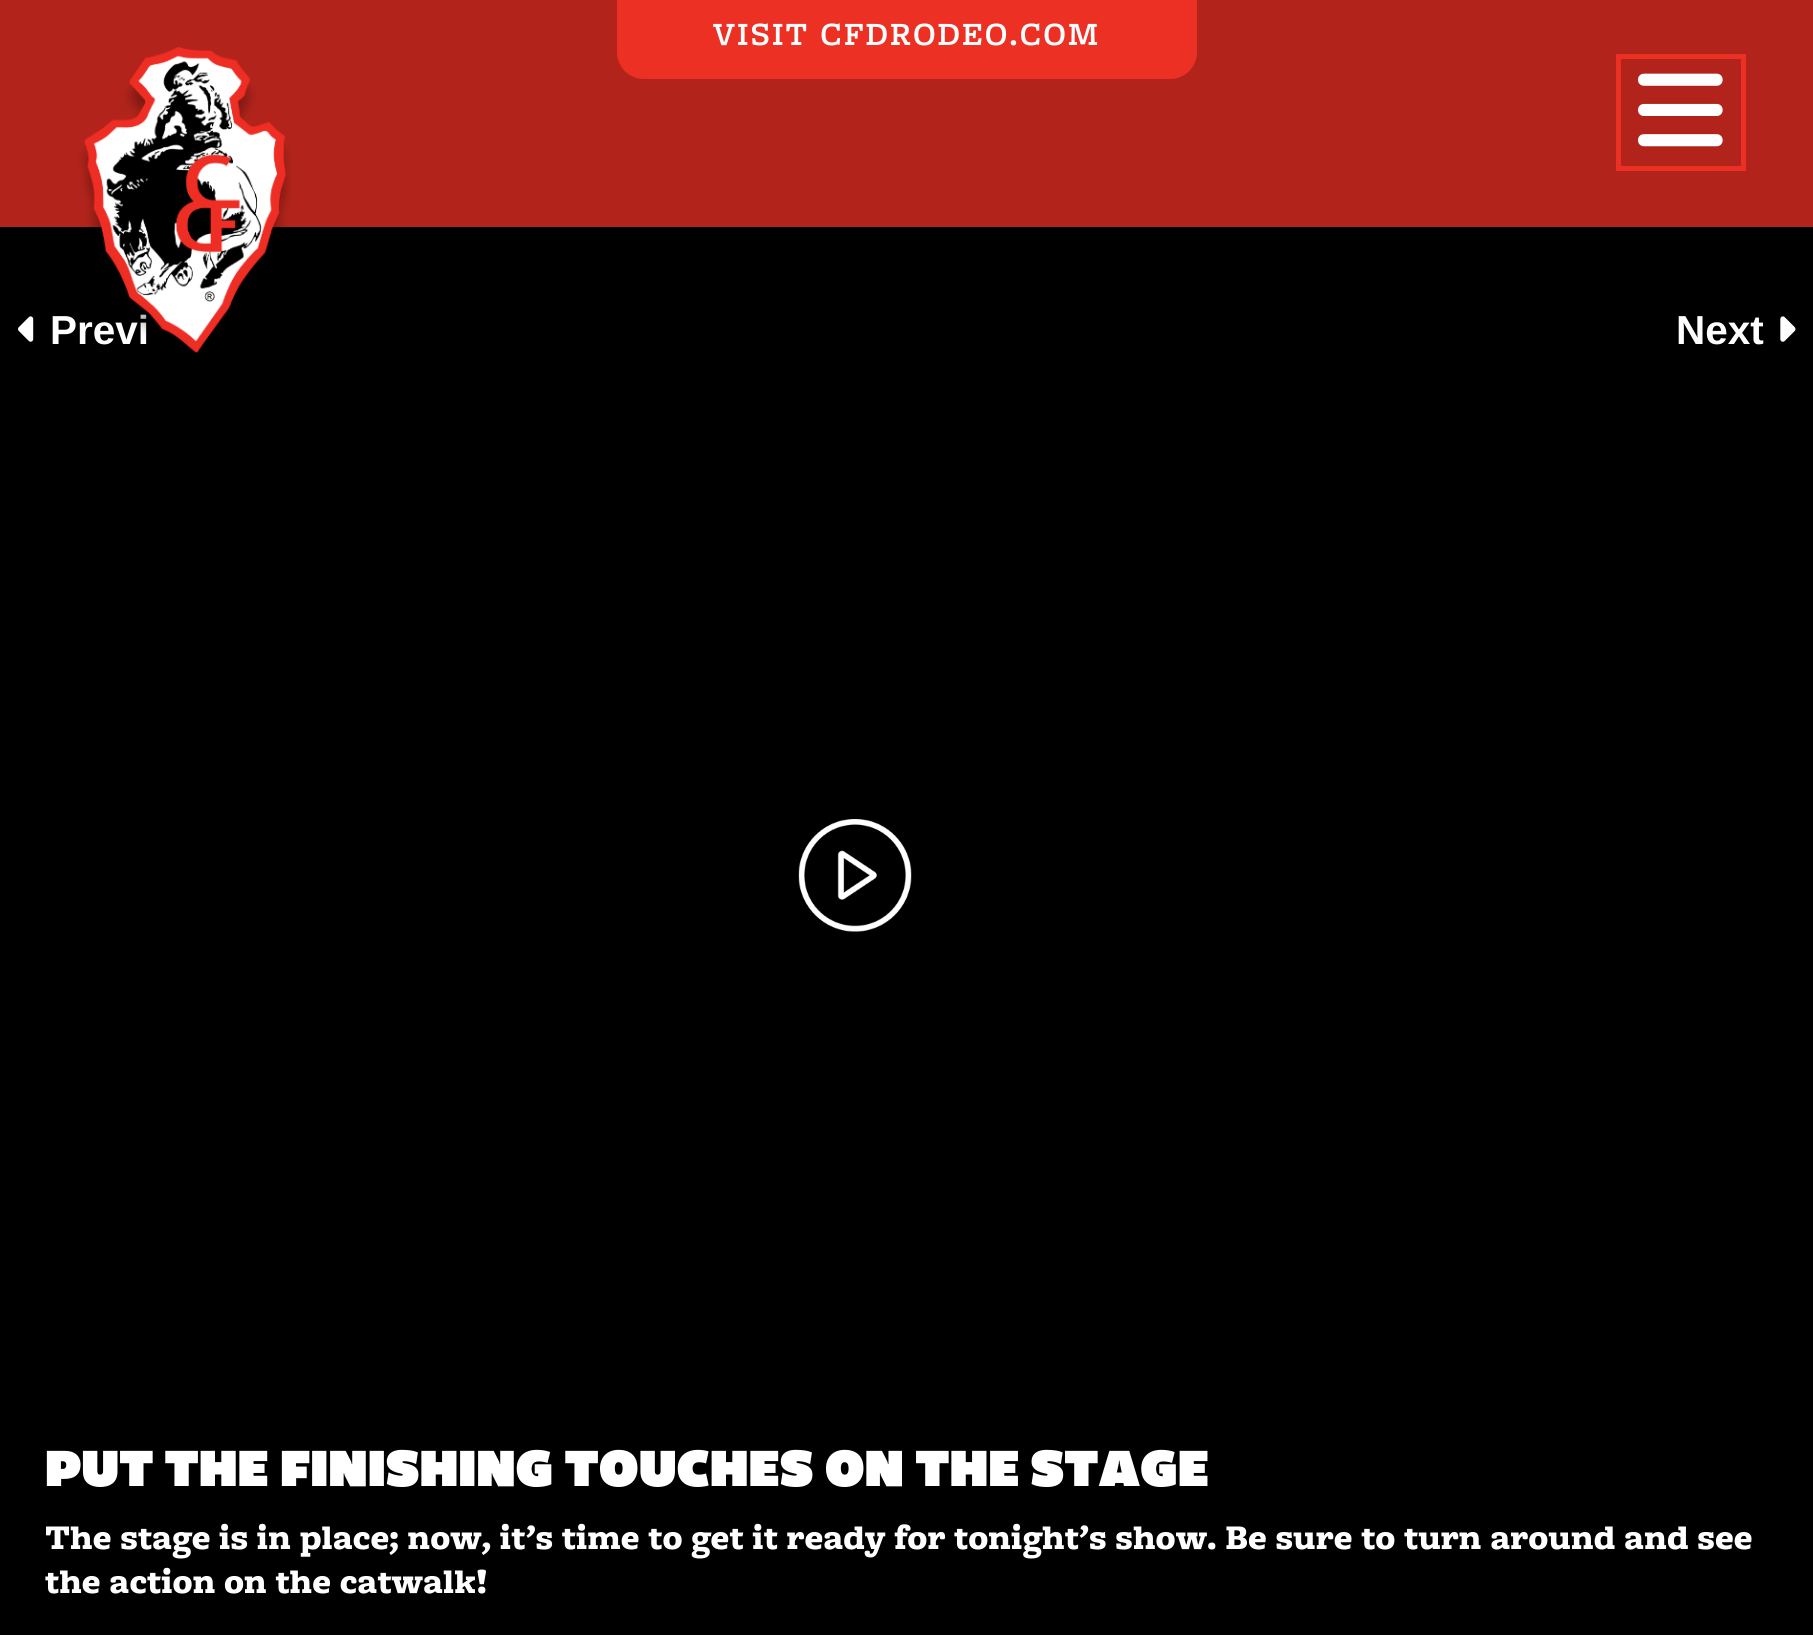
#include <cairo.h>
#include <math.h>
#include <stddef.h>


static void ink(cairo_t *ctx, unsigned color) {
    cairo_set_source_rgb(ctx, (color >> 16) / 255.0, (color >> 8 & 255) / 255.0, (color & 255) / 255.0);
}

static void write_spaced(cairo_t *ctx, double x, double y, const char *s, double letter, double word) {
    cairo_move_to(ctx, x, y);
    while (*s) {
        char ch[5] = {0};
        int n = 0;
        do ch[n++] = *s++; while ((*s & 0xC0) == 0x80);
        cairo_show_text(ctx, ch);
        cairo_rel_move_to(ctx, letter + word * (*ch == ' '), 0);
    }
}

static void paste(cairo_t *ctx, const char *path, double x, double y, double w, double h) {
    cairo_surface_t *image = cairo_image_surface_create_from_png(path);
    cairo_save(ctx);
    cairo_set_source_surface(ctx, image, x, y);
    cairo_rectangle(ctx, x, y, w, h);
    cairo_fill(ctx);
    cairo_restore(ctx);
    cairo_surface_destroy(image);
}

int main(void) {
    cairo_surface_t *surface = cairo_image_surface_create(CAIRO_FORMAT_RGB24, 1813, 1635);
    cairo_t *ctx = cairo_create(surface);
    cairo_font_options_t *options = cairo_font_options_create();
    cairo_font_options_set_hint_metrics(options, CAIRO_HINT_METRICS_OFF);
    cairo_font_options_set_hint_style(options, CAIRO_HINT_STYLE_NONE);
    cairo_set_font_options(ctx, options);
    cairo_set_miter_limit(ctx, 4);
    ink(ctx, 0x000000);
    cairo_paint(ctx);
    ink(ctx, 0xB2241B);
    cairo_rectangle(ctx, 0, 0, 1813, 227);
    cairo_fill(ctx);
    ink(ctx, 0xED3024);
    cairo_new_path(ctx);
    cairo_move_to(ctx, 617, -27);
    cairo_line_to(ctx, 1197, -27);
    cairo_line_to(ctx, 1197, 52);
    cairo_curve_to(ctx, 1197, 67, 1185, 79, 1170, 79);
    cairo_line_to(ctx, 644, 79);
    cairo_curve_to(ctx, 629, 79, 617, 67, 617, 52);
    cairo_close_path(ctx);
    cairo_fill(ctx);
    cairo_select_font_face(ctx, "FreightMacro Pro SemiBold", CAIRO_FONT_SLANT_NORMAL, CAIRO_FONT_WEIGHT_NORMAL);
    cairo_set_font_size(ctx, 33.75);
    ink(ctx, 0xFFFFFF);
    write_spaced(ctx, 713, 45, "VISIT CFDRODEO.COM", 2.25, 0);
    cairo_select_font_face(ctx, "Liberation Sans", CAIRO_FONT_SLANT_NORMAL, CAIRO_FONT_WEIGHT_BOLD);
    cairo_set_font_size(ctx, 40.5);
    cairo_move_to(ctx, 50, 344);
    cairo_show_text(ctx, "Previ");
    paste(ctx, "media/1.png", 78, 47, 214, 306);
    cairo_rectangle(ctx, 1618.5, 56.5, 125, 112);
    ink(ctx, 0xED3024);
    cairo_set_line_width(ctx, 5);
    cairo_stroke(ctx);
    paste(ctx, "media/2.png", 1638, 73, 85, 74);
    paste(ctx, "media/3.png", 18, 316, 16, 26);
    ink(ctx, 0xFFFFFF);
    cairo_move_to(ctx, 1676, 344);
    cairo_show_text(ctx, "Next");
    paste(ctx, "media/4.png", 1780, 316, 16, 26);
    paste(ctx, "media/5.png", 798, 819, 114, 113);
    cairo_select_font_face(ctx, "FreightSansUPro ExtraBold", CAIRO_FONT_SLANT_NORMAL, CAIRO_FONT_WEIGHT_NORMAL);
    cairo_set_font_size(ctx, 56.25);
    cairo_move_to(ctx, 45, 1486);
    cairo_show_text(ctx, "PUT THE FINISHING TOUCHES ON THE STAGE");
    cairo_select_font_face(ctx, "FreightMacro Pro Black", CAIRO_FONT_SLANT_NORMAL, CAIRO_FONT_WEIGHT_NORMAL);
    cairo_set_font_size(ctx, 36);
    cairo_move_to(ctx, 45, 1549);
    cairo_show_text(ctx, "The stage is in place; now, it’s time to get it ready for tonight’s show. Be sure to turn around and see");
    cairo_move_to(ctx, 45, 1593);
    cairo_show_text(ctx, "the action on the catwalk!");
    cairo_surface_write_to_png(surface, "image.png");
    cairo_font_options_destroy(options);
    cairo_destroy(ctx);
    cairo_surface_destroy(surface);
    return 0;
}
